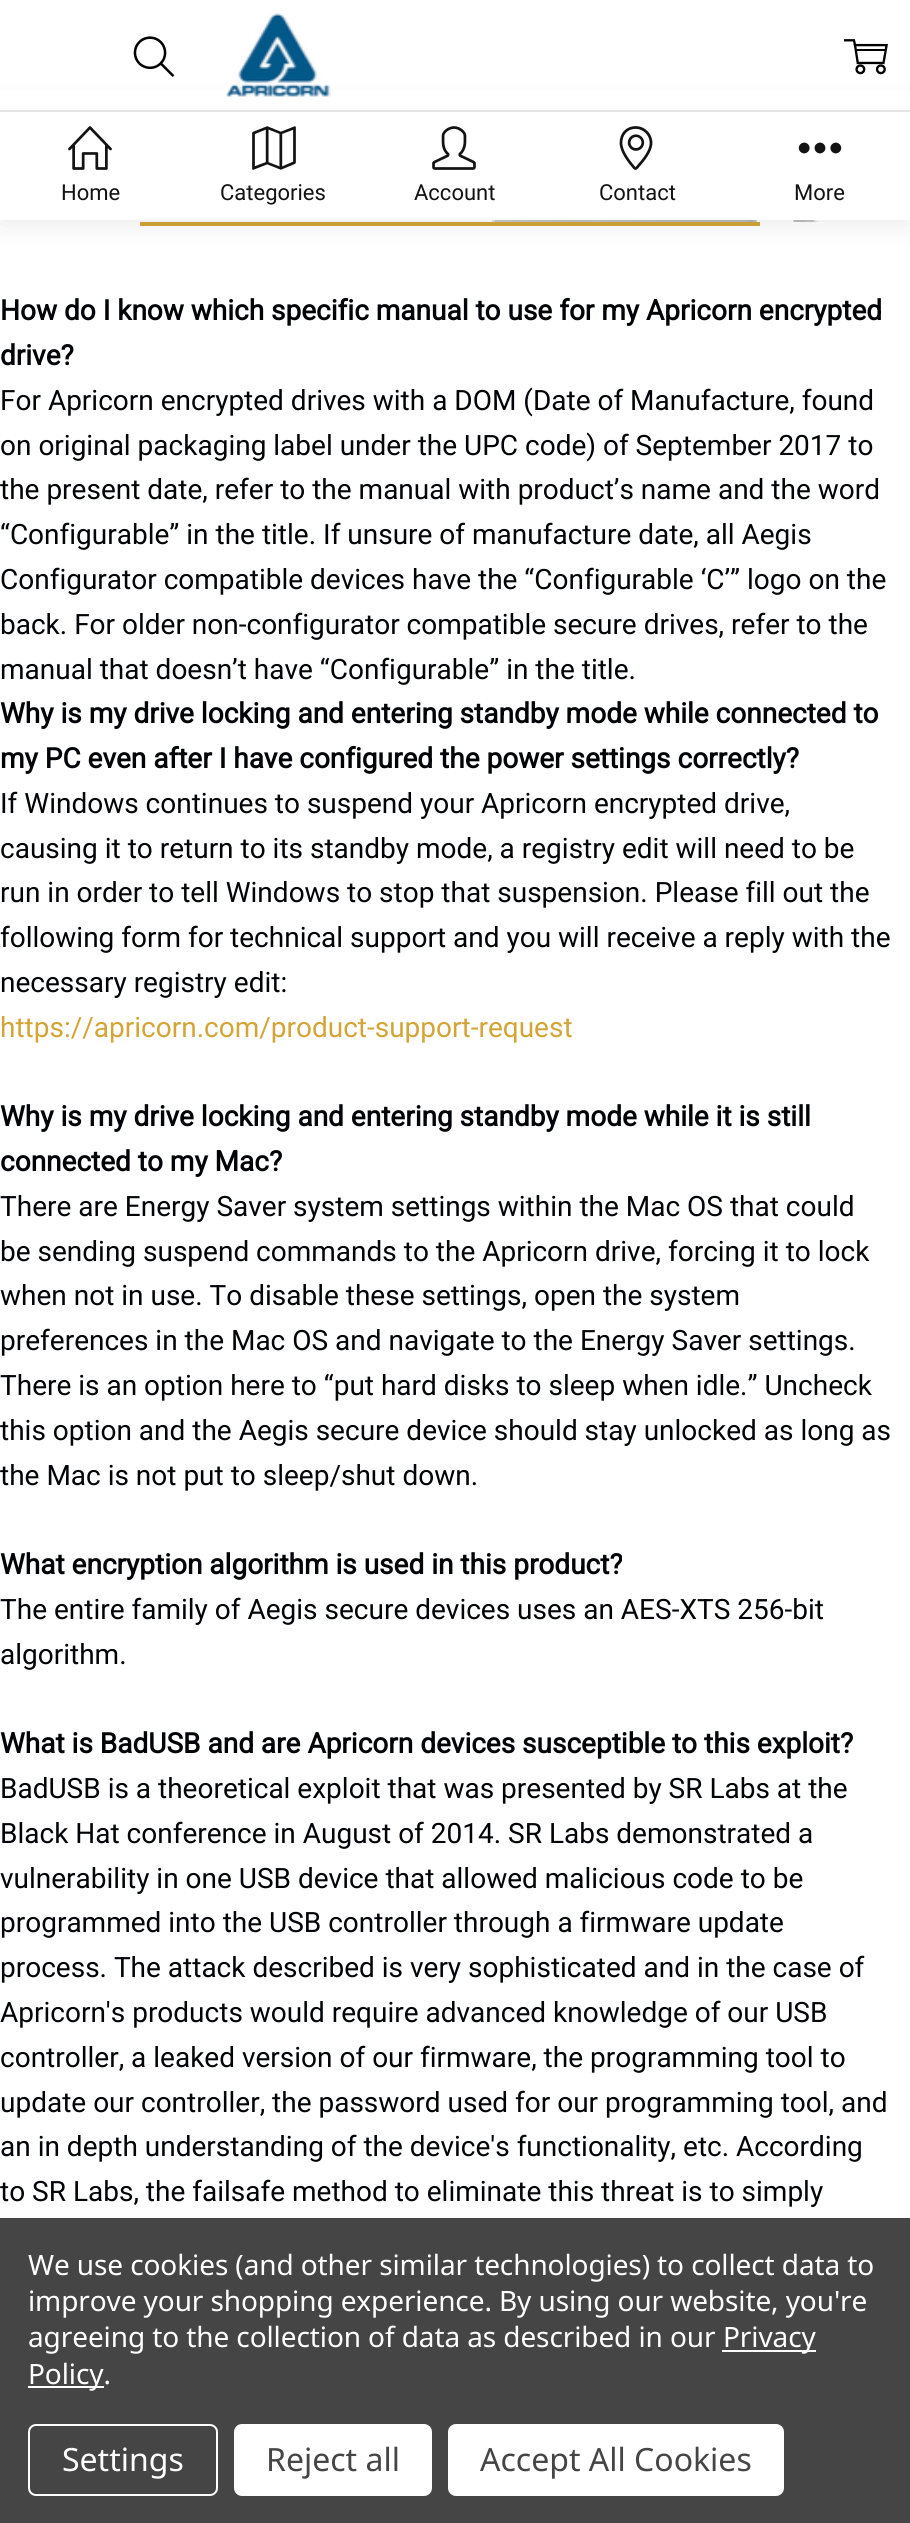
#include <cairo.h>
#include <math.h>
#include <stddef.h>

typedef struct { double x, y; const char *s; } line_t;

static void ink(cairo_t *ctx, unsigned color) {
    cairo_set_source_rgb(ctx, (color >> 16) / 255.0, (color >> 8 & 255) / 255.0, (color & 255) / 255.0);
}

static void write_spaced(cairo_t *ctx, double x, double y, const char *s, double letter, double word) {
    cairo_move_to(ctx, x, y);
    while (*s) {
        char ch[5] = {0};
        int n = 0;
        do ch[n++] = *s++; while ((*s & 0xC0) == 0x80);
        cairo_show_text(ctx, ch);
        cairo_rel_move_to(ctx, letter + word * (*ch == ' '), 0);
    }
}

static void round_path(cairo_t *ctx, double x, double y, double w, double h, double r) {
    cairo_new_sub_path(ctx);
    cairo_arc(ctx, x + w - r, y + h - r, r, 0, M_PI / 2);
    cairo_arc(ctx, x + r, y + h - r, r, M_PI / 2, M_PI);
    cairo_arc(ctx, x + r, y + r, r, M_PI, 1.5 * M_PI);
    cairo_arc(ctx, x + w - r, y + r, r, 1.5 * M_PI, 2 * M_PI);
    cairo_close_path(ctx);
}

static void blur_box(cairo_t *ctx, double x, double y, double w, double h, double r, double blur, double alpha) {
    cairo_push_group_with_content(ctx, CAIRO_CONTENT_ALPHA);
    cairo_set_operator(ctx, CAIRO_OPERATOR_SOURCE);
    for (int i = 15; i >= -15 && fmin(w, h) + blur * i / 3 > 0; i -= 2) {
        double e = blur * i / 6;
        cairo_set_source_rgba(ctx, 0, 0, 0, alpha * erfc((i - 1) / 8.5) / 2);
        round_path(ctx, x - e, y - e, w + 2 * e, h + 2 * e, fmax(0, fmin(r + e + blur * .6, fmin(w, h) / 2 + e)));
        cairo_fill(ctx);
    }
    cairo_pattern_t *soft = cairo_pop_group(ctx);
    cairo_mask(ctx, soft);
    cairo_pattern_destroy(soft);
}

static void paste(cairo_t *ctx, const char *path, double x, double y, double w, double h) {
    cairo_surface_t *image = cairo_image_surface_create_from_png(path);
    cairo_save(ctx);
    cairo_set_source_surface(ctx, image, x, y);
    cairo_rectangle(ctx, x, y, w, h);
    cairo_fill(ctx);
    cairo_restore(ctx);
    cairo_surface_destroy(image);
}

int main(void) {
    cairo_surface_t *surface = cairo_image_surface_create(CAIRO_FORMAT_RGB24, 910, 2523);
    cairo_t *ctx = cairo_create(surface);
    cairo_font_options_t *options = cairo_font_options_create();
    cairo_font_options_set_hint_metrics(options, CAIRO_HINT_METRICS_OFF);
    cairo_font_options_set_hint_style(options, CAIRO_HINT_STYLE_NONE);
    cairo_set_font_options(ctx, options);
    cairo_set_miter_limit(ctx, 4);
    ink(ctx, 0xFFFFFF);
    cairo_paint(ctx);
    paste(ctx, "media/9.png", 0, 220, 900, 2);
    ink(ctx, 0xD3A537);
    cairo_rectangle(ctx, 140, 222, 620, 4);
    cairo_fill(ctx);
    ink(ctx, 0x000000);
    blur_box(ctx, 0, 110, 910, 110, 0, 15, 0.1);
    ink(ctx, 0xFFFFFF);
    cairo_rectangle(ctx, 0, 91, 910, 19);
    cairo_fill(ctx);
    ink(ctx, 0xE5E5E5);
    cairo_rectangle(ctx, 0, 110, 910, 2);
    cairo_fill(ctx);
    paste(ctx, "media/1.png", 226, 13, 105, 84);
    paste(ctx, "media/2.png", 133, 36, 42, 41);
    paste(ctx, "media/3.png", 844, 39, 44, 36);
    ink(ctx, 0xFFFFFF);
    cairo_rectangle(ctx, 0, 112, 910, 108);
    cairo_fill(ctx);
    paste(ctx, "media/4.png", 68, 126, 44, 44);
    cairo_select_font_face(ctx, "Roboto", CAIRO_FONT_SLANT_NORMAL, CAIRO_FONT_WEIGHT_NORMAL);
    cairo_set_font_size(ctx, 22);
    ink(ctx, 0x131313);
    cairo_move_to(ctx, 61, 200);
    cairo_show_text(ctx, "Home");
    paste(ctx, "media/5.png", 252, 126, 44, 44);
    cairo_move_to(ctx, 220, 200);
    cairo_show_text(ctx, "Categories");
    paste(ctx, "media/6.png", 432, 126, 44, 44);
    cairo_move_to(ctx, 414, 200);
    cairo_show_text(ctx, "Account");
    paste(ctx, "media/7.png", 619, 126, 34, 44);
    cairo_move_to(ctx, 599, 200);
    cairo_show_text(ctx, "Contact");
    paste(ctx, "media/8.png", 798, 142, 44, 12);
    cairo_move_to(ctx, 794, 200);
    cairo_show_text(ctx, "More");
    cairo_select_font_face(ctx, "Roboto", CAIRO_FONT_SLANT_NORMAL, CAIRO_FONT_WEIGHT_BOLD);
    cairo_set_font_size(ctx, 28);
    ink(ctx, 0x010306);
    cairo_move_to(ctx, 0, 320);
    cairo_show_text(ctx, "How do I know which specific manual to use for my Apricorn encrypted");
    cairo_move_to(ctx, 0, 365);
    cairo_show_text(ctx, "drive?");
    cairo_select_font_face(ctx, "Roboto", CAIRO_FONT_SLANT_NORMAL, CAIRO_FONT_WEIGHT_NORMAL);
    {
        static const line_t items[] = {
            {0, 410, "For Apricorn encrypted drives with a DOM (Date of Manufacture, found"},
            {0, 455, "on original packaging label under the UPC code) of September 2017 to"},
            {0, 499, "the present date, refer to the manual with product’s name and the word"},
            {0, 544, "“Configurable” in the title. If unsure of manufacture date, all Aegis"},
            {0, 589, "Configurator compatible devices have the “Configurable ‘C’” logo on the"},
            {0, 634, "back. For older non-configurator compatible secure drives, refer to the"},
            {0, 679, "manual that doesn’t have “Configurable” in the title."},
        };
        for (size_t i = 0; i < sizeof items / sizeof *items; i++) {
            cairo_move_to(ctx, items[i].x, items[i].y);
            cairo_show_text(ctx, items[i].s);
        }
    }
    cairo_select_font_face(ctx, "Roboto", CAIRO_FONT_SLANT_NORMAL, CAIRO_FONT_WEIGHT_BOLD);
    cairo_move_to(ctx, 0, 723);
    cairo_show_text(ctx, "Why is my drive locking and entering standby mode while connected to");
    cairo_move_to(ctx, 0, 768);
    cairo_show_text(ctx, "my PC even after I have configured the power settings correctly?");
    cairo_select_font_face(ctx, "Roboto", CAIRO_FONT_SLANT_NORMAL, CAIRO_FONT_WEIGHT_NORMAL);
    {
        static const line_t items[] = {
            {0, 813, "If Windows continues to suspend your Apricorn encrypted drive,"},
            {0, 858, "causing it to return to its standby mode, a registry edit will need to be"},
            {0, 902, "run in order to tell Windows to stop that suspension. Please fill out the"},
            {0, 947, "following form for technical support and you will receive a reply with the"},
            {0, 992, "necessary registry edit:"},
        };
        for (size_t i = 0; i < sizeof items / sizeof *items; i++) {
            cairo_move_to(ctx, items[i].x, items[i].y);
            cairo_show_text(ctx, items[i].s);
        }
    }
    ink(ctx, 0xD3A537);
    cairo_move_to(ctx, 0, 1037);
    cairo_show_text(ctx, "https://apricorn.com/product-support-request");
    cairo_select_font_face(ctx, "Roboto", CAIRO_FONT_SLANT_NORMAL, CAIRO_FONT_WEIGHT_BOLD);
    ink(ctx, 0x010306);
    cairo_move_to(ctx, 0, 1126);
    cairo_show_text(ctx, "Why is my drive locking and entering standby mode while it is still");
    cairo_move_to(ctx, 0, 1171);
    cairo_show_text(ctx, "connected to my Mac?");
    cairo_select_font_face(ctx, "Roboto", CAIRO_FONT_SLANT_NORMAL, CAIRO_FONT_WEIGHT_NORMAL);
    {
        static const line_t items[] = {
            {0, 1216, "There are Energy Saver system settings within the Mac OS that could"},
            {0, 1261, "be sending suspend commands to the Apricorn drive, forcing it to lock"},
            {0, 1305, "when not in use. To disable these settings, open the system"},
            {0, 1350, "preferences in the Mac OS and navigate to the Energy Saver settings."},
            {0, 1395, "There is an option here to “put hard disks to sleep when idle.” Uncheck"},
            {0, 1440, "this option and the Aegis secure device should stay unlocked as long as"},
            {0, 1485, "the Mac is not put to sleep/shut down."},
        };
        for (size_t i = 0; i < sizeof items / sizeof *items; i++) {
            cairo_move_to(ctx, items[i].x, items[i].y);
            cairo_show_text(ctx, items[i].s);
        }
    }
    cairo_select_font_face(ctx, "Roboto", CAIRO_FONT_SLANT_NORMAL, CAIRO_FONT_WEIGHT_BOLD);
    cairo_move_to(ctx, 0, 1574);
    cairo_show_text(ctx, "What encryption algorithm is used in this product?");
    cairo_select_font_face(ctx, "Roboto", CAIRO_FONT_SLANT_NORMAL, CAIRO_FONT_WEIGHT_NORMAL);
    cairo_move_to(ctx, 0, 1619);
    cairo_show_text(ctx, "The entire family of Aegis secure devices uses an AES-XTS 256-bit");
    cairo_move_to(ctx, 0, 1664);
    cairo_show_text(ctx, "algorithm.");
    cairo_select_font_face(ctx, "Roboto", CAIRO_FONT_SLANT_NORMAL, CAIRO_FONT_WEIGHT_BOLD);
    cairo_move_to(ctx, 0, 1753);
    cairo_show_text(ctx, "What is BadUSB and are Apricorn devices susceptible to this exploit?");
    cairo_select_font_face(ctx, "Roboto", CAIRO_FONT_SLANT_NORMAL, CAIRO_FONT_WEIGHT_NORMAL);
    {
        static const line_t items[] = {
            {0, 1798, "BadUSB is a theoretical exploit that was presented by SR Labs at the"},
            {0, 1843, "Black Hat conference in August of 2014. SR Labs demonstrated a"},
            {0, 1888, "vulnerability in one USB device that allowed malicious code to be"},
            {0, 1932, "programmed into the USB controller through a firmware update"},
            {0, 1977, "process. The attack described is very sophisticated and in the case of"},
            {0, 2022, "Apricorn's products would require advanced knowledge of our USB"},
            {0, 2067, "controller, a leaked version of our firmware, the programming tool to"},
            {0, 2112, "update our controller, the password used for our programming tool, and"},
            {0, 2156, "an in depth understanding of the device's functionality, etc. According"},
            {0, 2201, "to SR Labs, the failsafe method to eliminate this threat is to simply"},
        };
        for (size_t i = 0; i < sizeof items / sizeof *items; i++) {
            cairo_move_to(ctx, items[i].x, items[i].y);
            cairo_show_text(ctx, items[i].s);
        }
    }
    ink(ctx, 0x454545);
    cairo_rectangle(ctx, 0, 2218, 910, 305);
    cairo_fill(ctx);
    cairo_select_font_face(ctx, "Noto Sans", CAIRO_FONT_SLANT_NORMAL, CAIRO_FONT_WEIGHT_NORMAL);
    ink(ctx, 0xFFFFFF);
    {
        static const line_t items[] = {
            {28, 2275, "We use cookies (and other similar technologies) to collect data to"},
            {28, 2311, "improve your shopping experience. By using our website, you're"},
            {28, 2347, "agreeing to the collection of data as described in our"},
        };
        for (size_t i = 0; i < sizeof items / sizeof *items; i++) {
            write_spaced(ctx, items[i].x, items[i].y, items[i].s, -0.1, 0);
        }
    }
    cairo_rectangle(ctx, 722, 2350, 94, 2);
    cairo_fill(ctx);
    write_spaced(ctx, 723, 2347, "Privacy", -0.1, 0);
    cairo_rectangle(ctx, 28, 2386, 76, 2);
    cairo_fill(ctx);
    write_spaced(ctx, 28, 2384, "Policy.", -0.1, 0);
    round_path(ctx, 29, 2425, 188, 70, 7);
    cairo_stroke(ctx);
    cairo_set_font_size(ctx, 32);
    cairo_move_to(ctx, 62, 2471);
    cairo_show_text(ctx, "Settings");
    round_path(ctx, 234, 2424, 198, 72, 8);
    cairo_fill(ctx);
    ink(ctx, 0x454545);
    cairo_move_to(ctx, 266, 2471);
    cairo_show_text(ctx, "Reject all");
    ink(ctx, 0xFFFFFF);
    round_path(ctx, 448, 2424, 336, 72, 8);
    cairo_fill(ctx);
    ink(ctx, 0x454545);
    cairo_move_to(ctx, 480, 2471);
    cairo_show_text(ctx, "Accept All Cookies");
    cairo_surface_write_to_png(surface, "image.png");
    cairo_font_options_destroy(options);
    cairo_destroy(ctx);
    cairo_surface_destroy(surface);
    return 0;
}
